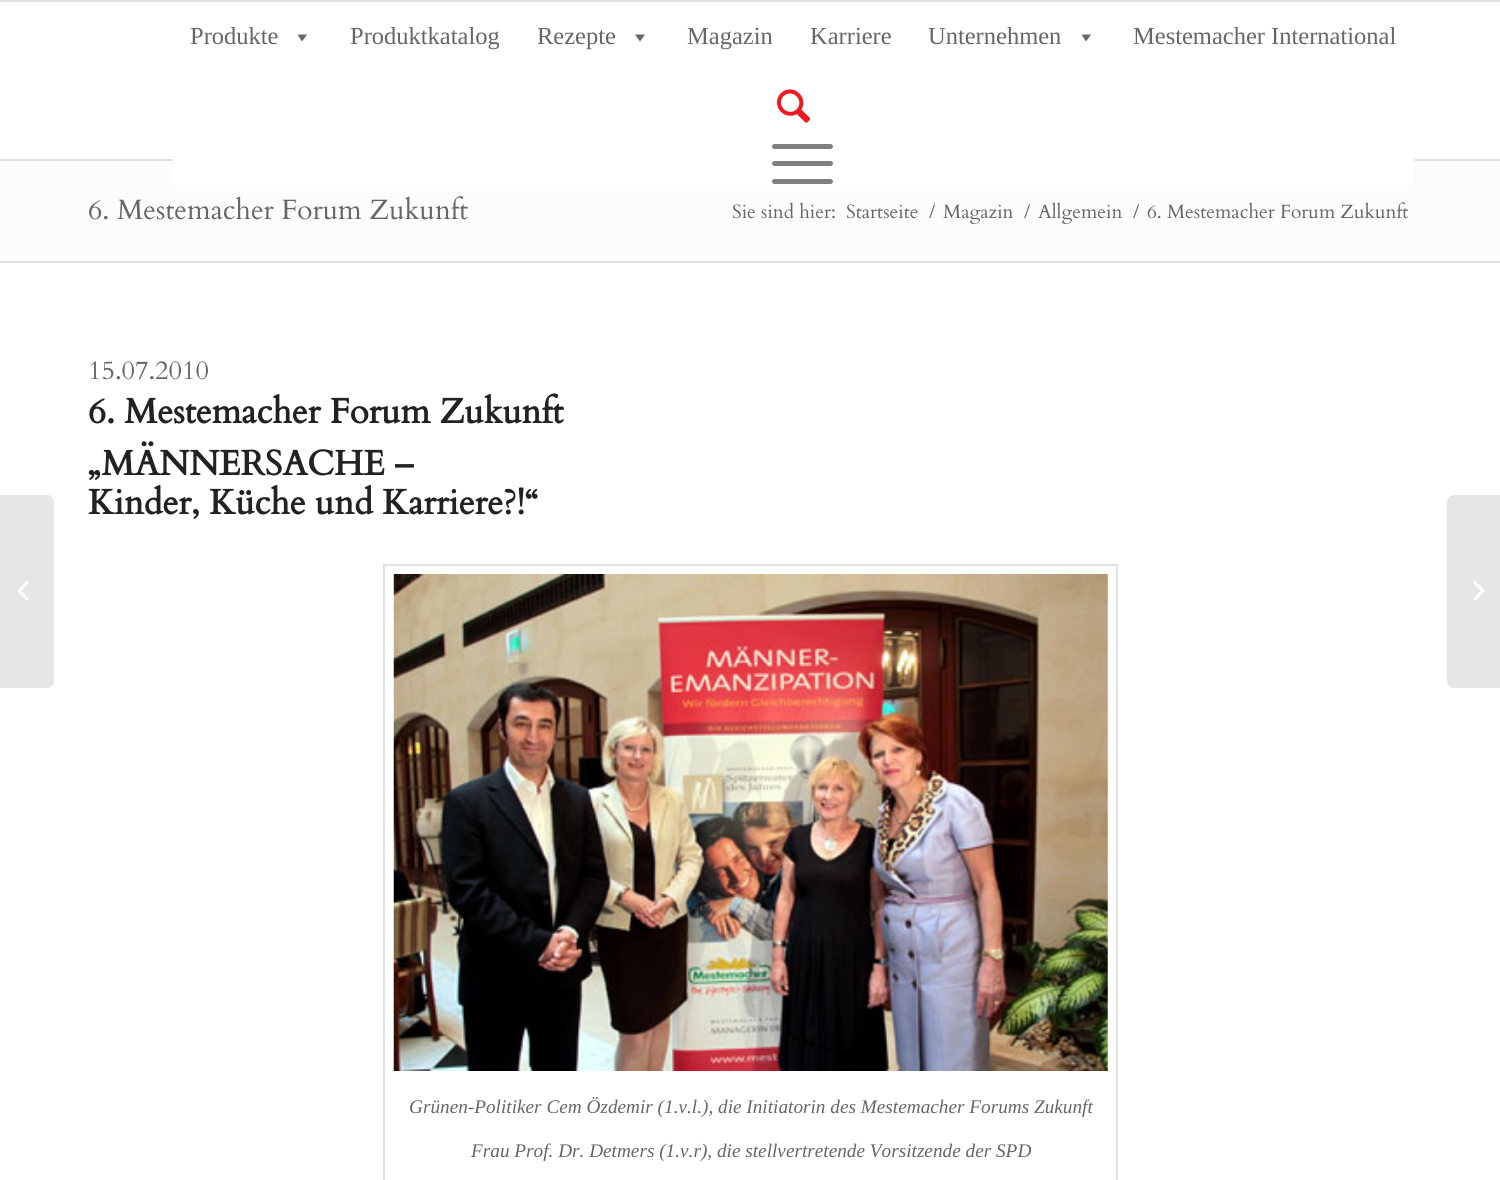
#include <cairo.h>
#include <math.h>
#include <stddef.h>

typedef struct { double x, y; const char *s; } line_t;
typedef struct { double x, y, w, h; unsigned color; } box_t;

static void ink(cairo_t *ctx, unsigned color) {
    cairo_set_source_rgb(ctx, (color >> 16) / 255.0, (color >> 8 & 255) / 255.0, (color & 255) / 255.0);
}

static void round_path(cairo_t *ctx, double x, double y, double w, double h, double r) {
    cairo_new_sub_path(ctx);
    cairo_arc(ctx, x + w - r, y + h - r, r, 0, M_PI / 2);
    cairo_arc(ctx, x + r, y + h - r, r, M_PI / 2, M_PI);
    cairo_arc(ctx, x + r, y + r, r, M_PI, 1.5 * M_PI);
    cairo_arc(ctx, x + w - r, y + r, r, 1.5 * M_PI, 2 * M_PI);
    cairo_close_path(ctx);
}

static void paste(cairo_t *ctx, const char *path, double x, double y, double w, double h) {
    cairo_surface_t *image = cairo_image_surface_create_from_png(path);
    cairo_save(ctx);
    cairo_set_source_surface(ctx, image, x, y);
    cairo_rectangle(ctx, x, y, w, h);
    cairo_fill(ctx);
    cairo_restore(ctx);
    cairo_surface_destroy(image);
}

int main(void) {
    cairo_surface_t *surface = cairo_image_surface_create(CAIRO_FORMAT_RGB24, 1500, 1180);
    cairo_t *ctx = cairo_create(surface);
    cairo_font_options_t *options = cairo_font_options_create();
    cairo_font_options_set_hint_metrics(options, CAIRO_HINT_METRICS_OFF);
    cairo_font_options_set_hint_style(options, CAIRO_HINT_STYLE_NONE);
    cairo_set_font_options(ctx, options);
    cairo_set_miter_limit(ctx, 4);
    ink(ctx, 0xFFFFFF);
    cairo_paint(ctx);
    {
        static const box_t items[] = {
            {0, 0, 1500, 2, 0xE1E1E1},
            {0, 159, 1500, 2, 0xE1E1E1},
            {0, 161, 1500, 100, 0xFCFCFC},
            {173, 159, 1241, 27, 0xFFFFFF},
        };
        for (size_t i = 0; i < sizeof items / sizeof *items; i++) {
            ink(ctx, items[i].color);
            cairo_rectangle(ctx, items[i].x, items[i].y, items[i].w, items[i].h);
            cairo_fill(ctx);
        }
    }
    cairo_select_font_face(ctx, "Liberation Serif", CAIRO_FONT_SLANT_NORMAL, CAIRO_FONT_WEIGHT_NORMAL);
    cairo_set_font_size(ctx, 24.5);
    ink(ctx, 0x666666);
    cairo_move_to(ctx, 190, 44);
    cairo_show_text(ctx, "Produkte");
    cairo_new_path(ctx);
    cairo_move_to(ctx, 307, 34.5);
    cairo_line_to(ctx, 302, 41.5);
    cairo_line_to(ctx, 297.5, 34.5);
    cairo_close_path(ctx);
    cairo_fill(ctx);
    cairo_move_to(ctx, 350, 44);
    cairo_show_text(ctx, "Produktkatalog");
    cairo_move_to(ctx, 537, 44);
    cairo_show_text(ctx, "Rezepte");
    cairo_new_path(ctx);
    cairo_move_to(ctx, 645, 34.5);
    cairo_line_to(ctx, 640, 41.5);
    cairo_line_to(ctx, 635, 34.5);
    cairo_close_path(ctx);
    cairo_fill(ctx);
    {
        static const line_t items[] = {
            {687, 44, "Magazin"},
            {810, 44, "Karriere"},
            {928, 44, "Unternehmen"},
        };
        for (size_t i = 0; i < sizeof items / sizeof *items; i++) {
            cairo_move_to(ctx, items[i].x, items[i].y);
            cairo_show_text(ctx, items[i].s);
        }
    }
    cairo_new_path(ctx);
    cairo_move_to(ctx, 1091, 34.5);
    cairo_line_to(ctx, 1086, 41.5);
    cairo_line_to(ctx, 1081.5, 34.5);
    cairo_close_path(ctx);
    cairo_fill(ctx);
    cairo_move_to(ctx, 1133, 44);
    cairo_show_text(ctx, "Mestemacher International");
    paste(ctx, "media/1.png", 777, 89, 34, 34);
    ink(ctx, 0x808080);
    round_path(ctx, 772, 161, 61, 5, 2.5);
    cairo_fill(ctx);
    round_path(ctx, 772, 144, 61, 5, 2.5);
    cairo_fill(ctx);
    round_path(ctx, 772, 179, 61, 5, 2.5);
    cairo_fill(ctx);
    ink(ctx, 0xE6E6E6);
    cairo_new_path(ctx);
    cairo_move_to(ctx, 0, 495);
    cairo_line_to(ctx, 47, 495);
    cairo_curve_to(ctx, 51, 495, 54, 498, 54, 502);
    cairo_line_to(ctx, 54, 681);
    cairo_curve_to(ctx, 54, 685, 51, 688, 47, 688);
    cairo_line_to(ctx, 0, 688);
    cairo_close_path(ctx);
    cairo_fill(ctx);
    paste(ctx, "media/2.png", 17, 581, 12, 20);
    cairo_select_font_face(ctx, "Cardo", CAIRO_FONT_SLANT_NORMAL, CAIRO_FONT_WEIGHT_NORMAL);
    cairo_set_font_size(ctx, 28);
    ink(ctx, 0x666666);
    cairo_move_to(ctx, 88, 219);
    cairo_show_text(ctx, "6. Mestemacher Forum Zukunft");
    cairo_set_font_size(ctx, 19.25);
    {
        static const line_t items[] = {
            {732, 218, "Sie sind hier:"},
            {846, 218, "Startseite"},
            {929, 218, "/"},
            {943, 218, "Magazin"},
            {1024, 218, "/"},
            {1038, 218, "Allgemein"},
            {1133, 218, "/"},
            {1147, 218, "6. Mestemacher Forum Zukunft"},
        };
        for (size_t i = 0; i < sizeof items / sizeof *items; i++) {
            cairo_move_to(ctx, items[i].x, items[i].y);
            cairo_show_text(ctx, items[i].s);
        }
    }
    ink(ctx, 0xE1E1E1);
    cairo_rectangle(ctx, 0, 261, 1500, 2);
    cairo_fill(ctx);
    cairo_set_font_size(ctx, 26.25);
    ink(ctx, 0x666666);
    cairo_move_to(ctx, 88, 379);
    cairo_show_text(ctx, "15.07.2010");
    cairo_select_font_face(ctx, "Cardo", CAIRO_FONT_SLANT_NORMAL, CAIRO_FONT_WEIGHT_BOLD);
    cairo_set_font_size(ctx, 35);
    ink(ctx, 0x222222);
    {
        static const line_t items[] = {
            {88, 423, "6. Mestemacher Forum Zukunft"},
            {88, 475, "„MÄNNERSACHE –"},
            {88, 514, "Kinder, Küche und Karriere?!“"},
        };
        for (size_t i = 0; i < sizeof items / sizeof *items; i++) {
            cairo_move_to(ctx, items[i].x, items[i].y);
            cairo_show_text(ctx, items[i].s);
        }
    }
    cairo_rectangle(ctx, 384, 565, 733, 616);
    ink(ctx, 0xE1E1E1);
    cairo_stroke(ctx);
    paste(ctx, "media/3.png", 393, 574, 715, 497);
    cairo_select_font_face(ctx, "Liberation Serif", CAIRO_FONT_SLANT_ITALIC, CAIRO_FONT_WEIGHT_NORMAL);
    cairo_set_font_size(ctx, 19.25);
    ink(ctx, 0x666666);
    cairo_move_to(ctx, 409, 1113);
    cairo_show_text(ctx, "Grünen-Politiker Cem Özdemir (1.v.l.), die Initiatorin des Mestemacher Forums Zukunft");
    cairo_move_to(ctx, 471, 1157);
    cairo_show_text(ctx, "Frau Prof. Dr. Detmers (1.v.r), die stellvertretende Vorsitzende der SPD");
    ink(ctx, 0xE6E6E6);
    cairo_new_path(ctx);
    cairo_move_to(ctx, 1454, 495);
    cairo_line_to(ctx, 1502, 495);
    cairo_line_to(ctx, 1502, 688);
    cairo_line_to(ctx, 1454, 688);
    cairo_curve_to(ctx, 1450, 688, 1447, 685, 1447, 681);
    cairo_line_to(ctx, 1447, 502);
    cairo_curve_to(ctx, 1447, 498, 1450, 495, 1454, 495);
    cairo_close_path(ctx);
    cairo_fill(ctx);
    paste(ctx, "media/4.png", 1473, 581, 12, 20);
    cairo_surface_write_to_png(surface, "image.png");
    cairo_font_options_destroy(options);
    cairo_destroy(ctx);
    cairo_surface_destroy(surface);
    return 0;
}
